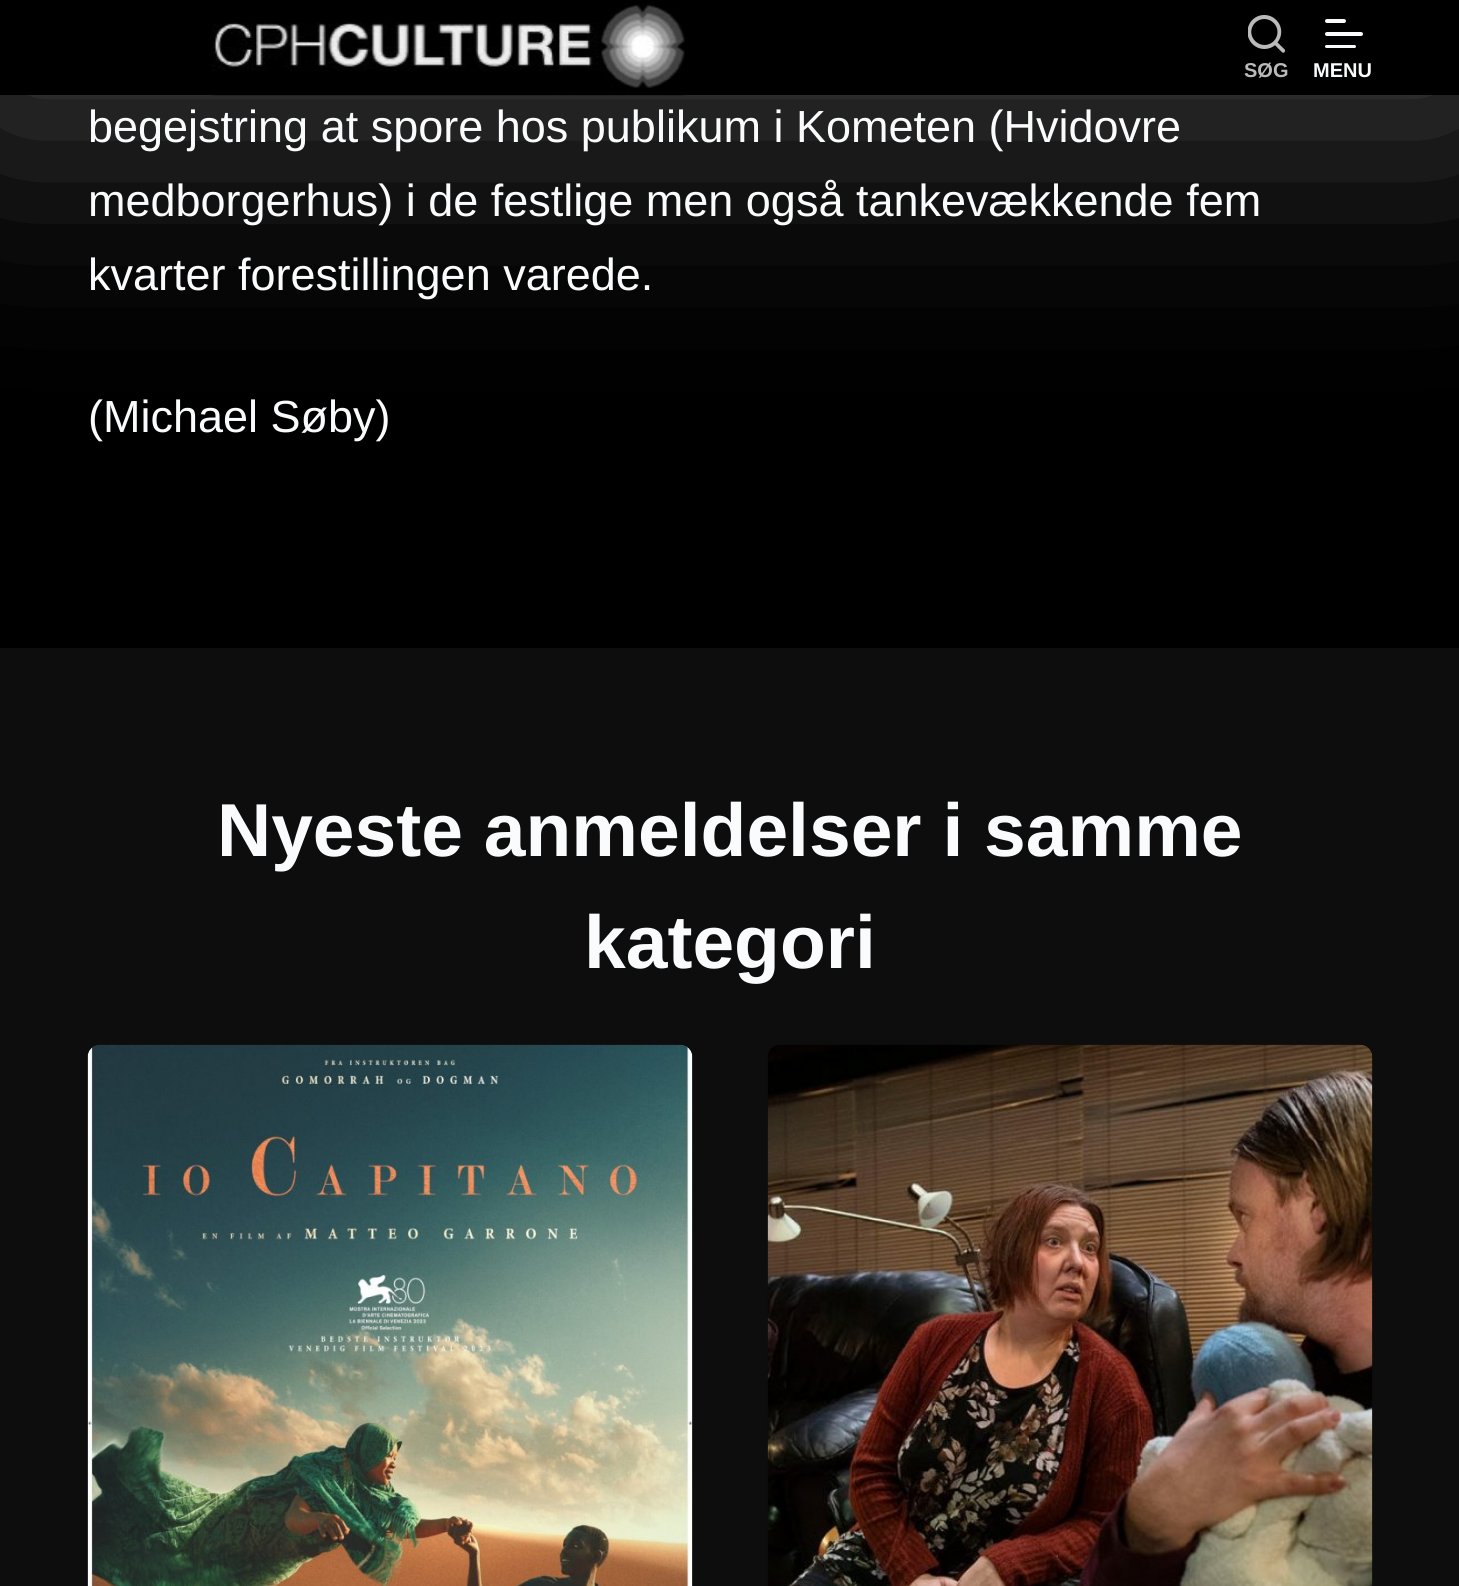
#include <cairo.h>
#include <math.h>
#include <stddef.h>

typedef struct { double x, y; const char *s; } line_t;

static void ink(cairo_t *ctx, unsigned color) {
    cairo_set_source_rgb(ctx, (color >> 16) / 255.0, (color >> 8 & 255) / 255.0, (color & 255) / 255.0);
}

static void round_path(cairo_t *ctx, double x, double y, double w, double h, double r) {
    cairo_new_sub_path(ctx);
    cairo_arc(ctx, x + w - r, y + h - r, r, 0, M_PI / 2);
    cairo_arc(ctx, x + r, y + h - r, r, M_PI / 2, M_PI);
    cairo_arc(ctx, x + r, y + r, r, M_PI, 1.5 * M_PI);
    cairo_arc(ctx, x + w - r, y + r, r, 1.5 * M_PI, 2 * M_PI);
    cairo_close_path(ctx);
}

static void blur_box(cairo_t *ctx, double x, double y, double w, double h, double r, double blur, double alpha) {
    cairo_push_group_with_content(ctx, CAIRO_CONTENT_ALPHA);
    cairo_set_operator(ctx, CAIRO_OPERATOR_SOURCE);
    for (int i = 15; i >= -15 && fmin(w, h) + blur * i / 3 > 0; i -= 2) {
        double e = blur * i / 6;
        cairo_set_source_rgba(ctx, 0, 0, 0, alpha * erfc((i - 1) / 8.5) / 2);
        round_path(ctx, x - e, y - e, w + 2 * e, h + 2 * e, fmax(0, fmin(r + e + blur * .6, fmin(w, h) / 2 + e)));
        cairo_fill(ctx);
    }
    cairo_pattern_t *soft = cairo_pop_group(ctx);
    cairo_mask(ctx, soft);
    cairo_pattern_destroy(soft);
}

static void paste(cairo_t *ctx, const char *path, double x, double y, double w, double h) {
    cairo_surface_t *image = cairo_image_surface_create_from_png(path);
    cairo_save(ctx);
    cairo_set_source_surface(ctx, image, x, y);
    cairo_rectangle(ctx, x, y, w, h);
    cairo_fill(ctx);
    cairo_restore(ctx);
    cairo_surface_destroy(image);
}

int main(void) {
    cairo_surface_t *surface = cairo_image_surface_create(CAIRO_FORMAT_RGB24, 1459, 1586);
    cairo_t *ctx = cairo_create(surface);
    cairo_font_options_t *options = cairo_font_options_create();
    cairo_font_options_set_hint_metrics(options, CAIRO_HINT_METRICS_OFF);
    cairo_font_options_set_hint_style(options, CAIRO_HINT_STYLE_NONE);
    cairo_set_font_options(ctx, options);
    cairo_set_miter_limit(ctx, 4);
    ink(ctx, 0x000000);
    cairo_paint(ctx);
    ink(ctx, 0xFFFFFF);
    blur_box(ctx, -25, -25, 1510, 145, 0, 125, 0.27);
    ink(ctx, 0x000000);
    cairo_rectangle(ctx, 0, 0, 1459, 95);
    cairo_fill(ctx);
    paste(ctx, "media/1.png", 212, 2, 473, 94);
    paste(ctx, "media/2.png", 1248, 15, 37, 38);
    cairo_select_font_face(ctx, "Liberation Sans", CAIRO_FONT_SLANT_NORMAL, CAIRO_FONT_WEIGHT_BOLD);
    cairo_set_font_size(ctx, 20);
    ink(ctx, 0xBABABA);
    cairo_move_to(ctx, 1244, 77);
    cairo_show_text(ctx, "SØG");
    ink(ctx, 0xFAFBFC);
    round_path(ctx, 1325, 19, 21, 4, 2);
    cairo_fill(ctx);
    round_path(ctx, 1325, 32, 38, 4, 2);
    cairo_fill(ctx);
    round_path(ctx, 1325, 45, 31, 3, 1.5);
    cairo_fill(ctx);
    cairo_move_to(ctx, 1313, 77);
    cairo_show_text(ctx, "MENU");
    cairo_select_font_face(ctx, "Liberation Sans", CAIRO_FONT_SLANT_NORMAL, CAIRO_FONT_WEIGHT_NORMAL);
    cairo_set_font_size(ctx, 45);
    {
        static const line_t items[] = {
            {88, 142, "begejstring at spore hos publikum i Kometen (Hvidovre"},
            {88, 216, "medborgerhus) i de festlige men også tankevækkende fem"},
            {88, 290, "kvarter forestillingen varede."},
            {88, 432, "(Michael Søby)"},
        };
        for (size_t i = 0; i < sizeof items / sizeof *items; i++) {
            cairo_move_to(ctx, items[i].x, items[i].y);
            cairo_show_text(ctx, items[i].s);
        }
    }
    ink(ctx, 0x0D0D0D);
    cairo_rectangle(ctx, 0, 648, 1459, 938);
    cairo_fill(ctx);
    cairo_select_font_face(ctx, "Liberation Sans", CAIRO_FONT_SLANT_NORMAL, CAIRO_FONT_WEIGHT_BOLD);
    cairo_set_font_size(ctx, 75);
    ink(ctx, 0xFAFBFC);
    cairo_move_to(ctx, 217, 856);
    cairo_show_text(ctx, "Nyeste anmeldelser i samme");
    cairo_move_to(ctx, 584, 968);
    cairo_show_text(ctx, "kategori");
    paste(ctx, "media/3.png", 87, 1044, 606, 542);
    paste(ctx, "media/4.png", 767, 1044, 606, 542);
    cairo_surface_write_to_png(surface, "image.png");
    cairo_font_options_destroy(options);
    cairo_destroy(ctx);
    cairo_surface_destroy(surface);
    return 0;
}
